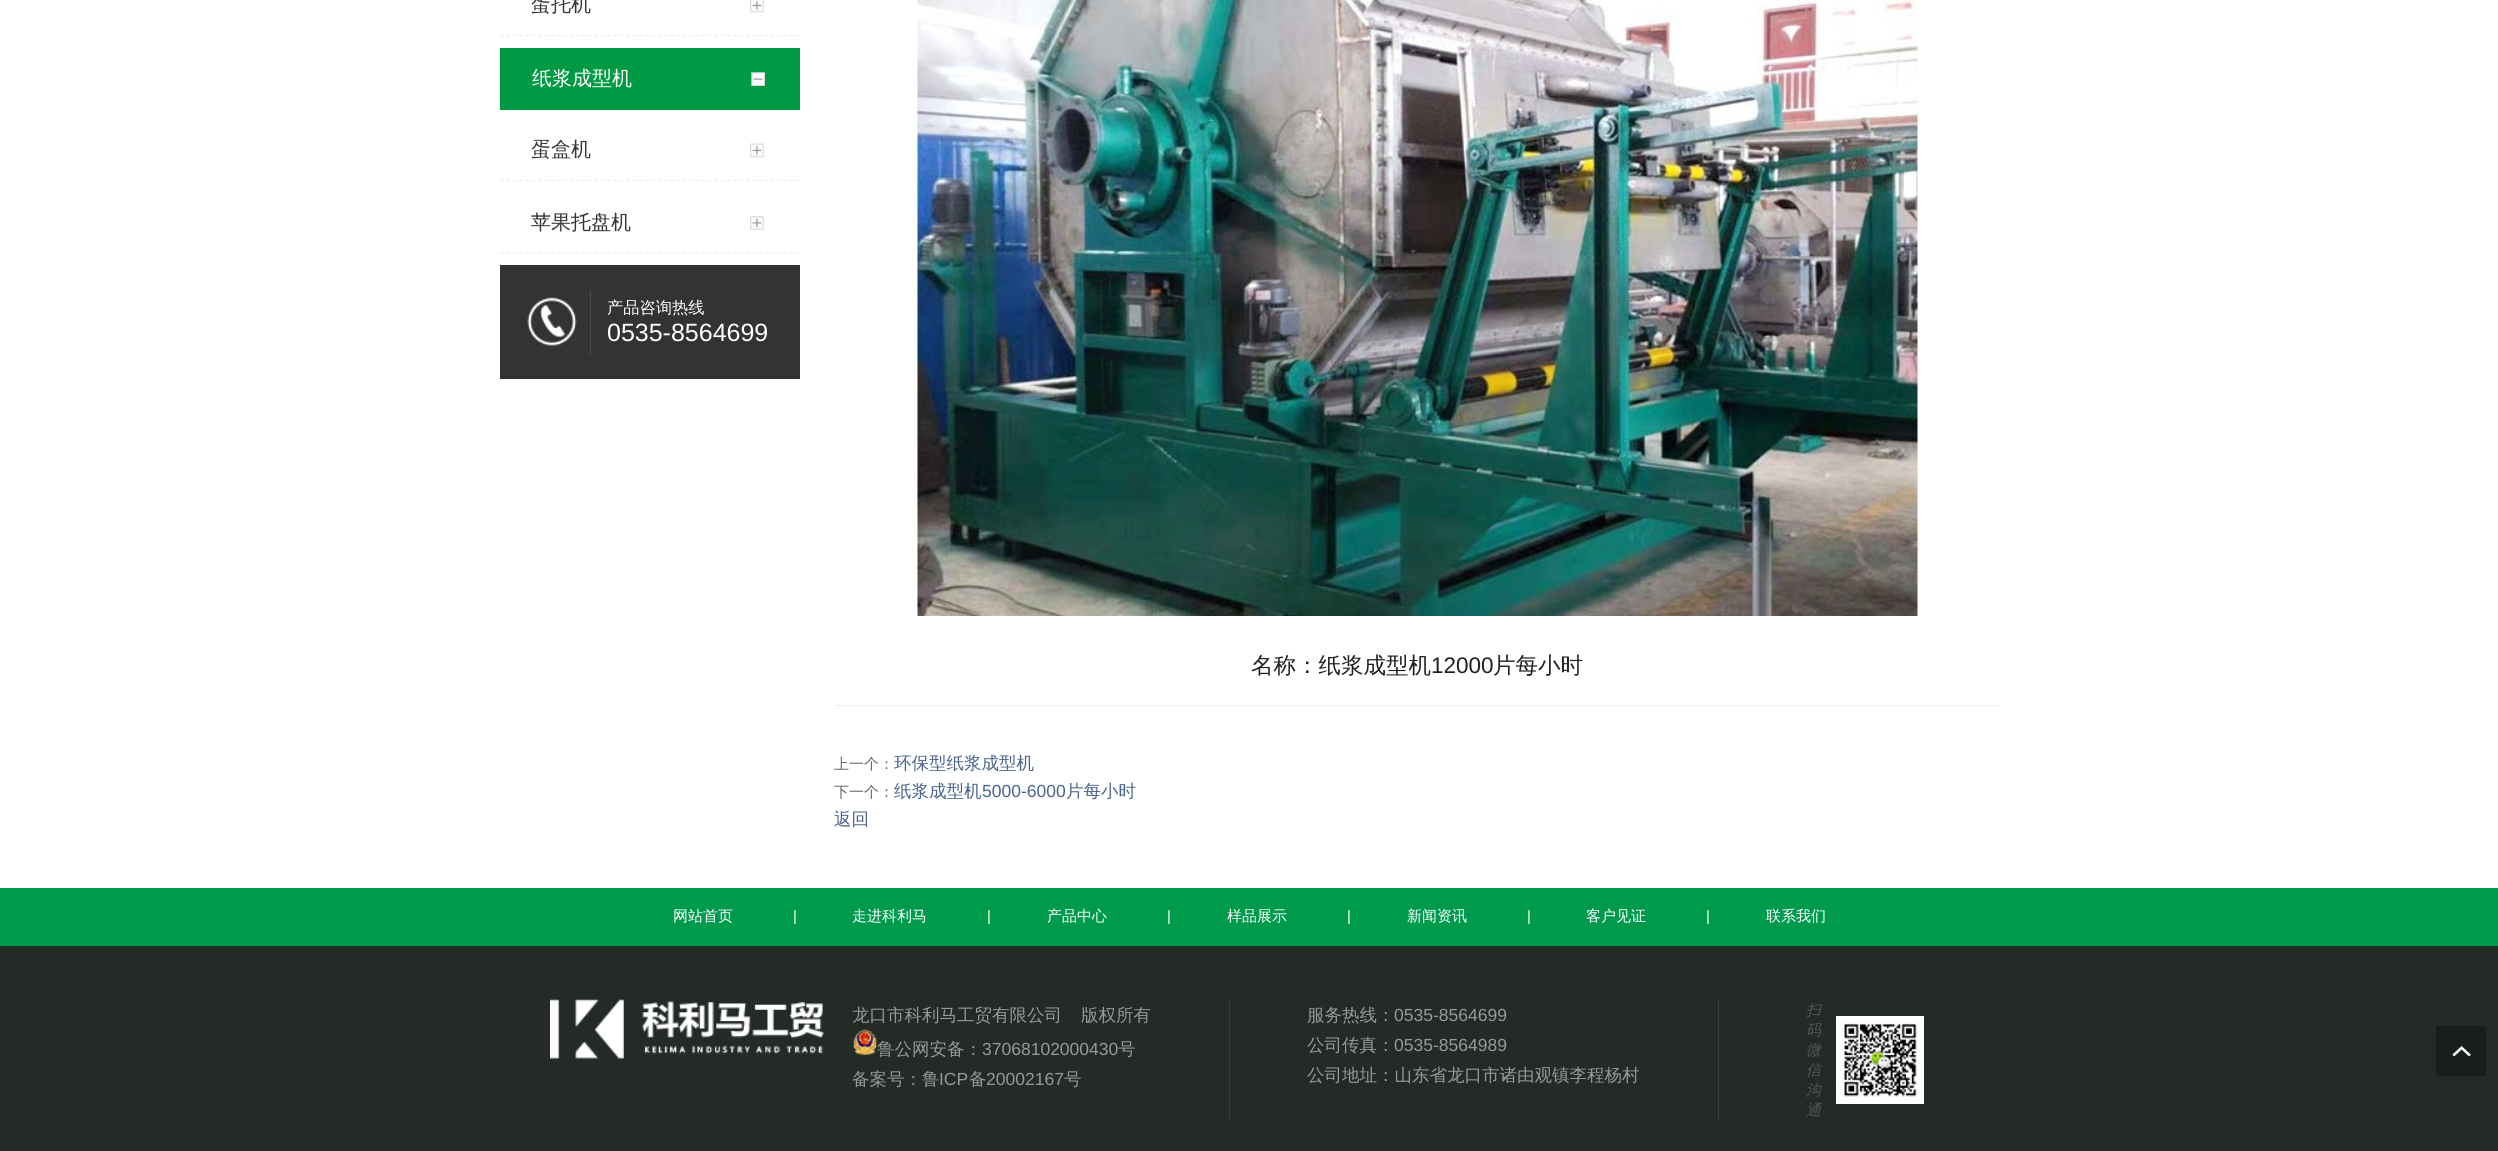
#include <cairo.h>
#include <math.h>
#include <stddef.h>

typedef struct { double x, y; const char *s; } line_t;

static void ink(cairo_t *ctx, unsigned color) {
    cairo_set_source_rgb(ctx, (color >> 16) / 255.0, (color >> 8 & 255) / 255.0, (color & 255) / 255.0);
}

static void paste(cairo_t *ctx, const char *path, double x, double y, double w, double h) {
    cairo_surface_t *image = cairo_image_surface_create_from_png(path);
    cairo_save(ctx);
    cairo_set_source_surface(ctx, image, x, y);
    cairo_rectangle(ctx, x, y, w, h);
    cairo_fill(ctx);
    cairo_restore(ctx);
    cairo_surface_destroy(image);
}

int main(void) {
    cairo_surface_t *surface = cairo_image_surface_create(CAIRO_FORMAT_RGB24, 2498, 1151);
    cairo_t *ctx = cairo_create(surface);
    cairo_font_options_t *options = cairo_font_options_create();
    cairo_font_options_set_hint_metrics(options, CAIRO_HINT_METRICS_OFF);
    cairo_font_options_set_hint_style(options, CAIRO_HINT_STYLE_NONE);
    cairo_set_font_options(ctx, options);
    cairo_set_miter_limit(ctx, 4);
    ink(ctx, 0xFFFFFF);
    cairo_paint(ctx);
    paste(ctx, "media/1.png", 750, 0, 14, 13);
    cairo_new_path(ctx);
    cairo_move_to(ctx, 500, 35.5);
    cairo_line_to(ctx, 800, 35.5);
    ink(ctx, 0xEEEEEE);
    cairo_set_line_width(ctx, 1.2);
    cairo_set_dash(ctx, (double[]){3.75, 2.55}, 2, 0);
    cairo_stroke(ctx);
    cairo_select_font_face(ctx, "WenQuanYi Zen Hei Medium", CAIRO_FONT_SLANT_NORMAL, CAIRO_FONT_WEIGHT_NORMAL);
    cairo_set_font_size(ctx, 20);
    ink(ctx, 0x333333);
    cairo_move_to(ctx, 531, 11);
    cairo_show_text(ctx, "蛋托机");
    ink(ctx, 0x009A44);
    cairo_rectangle(ctx, 500, 48, 300, 62);
    cairo_fill(ctx);
    paste(ctx, "media/2.png", 751, 72, 14, 14);
    ink(ctx, 0xFFFFFF);
    cairo_move_to(ctx, 532, 85);
    cairo_show_text(ctx, "纸浆成型机");
    paste(ctx, "media/3.png", 750, 143, 14, 15);
    cairo_new_path(ctx);
    cairo_move_to(ctx, 500, 180.5);
    cairo_line_to(ctx, 800, 180.5);
    ink(ctx, 0xEEEEEE);
    cairo_stroke(ctx);
    ink(ctx, 0x333333);
    cairo_move_to(ctx, 531, 156);
    cairo_show_text(ctx, "蛋盒机");
    paste(ctx, "media/4.png", 750, 216, 14, 14);
    cairo_new_path(ctx);
    cairo_move_to(ctx, 500, 253);
    cairo_line_to(ctx, 800, 253);
    ink(ctx, 0xEEEEEE);
    cairo_stroke(ctx);
    ink(ctx, 0x333333);
    cairo_move_to(ctx, 531, 229);
    cairo_show_text(ctx, "苹果托盘机");
    cairo_rectangle(ctx, 500, 265, 300, 114);
    cairo_fill(ctx);
    paste(ctx, "media/5.png", 527, 297, 50, 49);
    cairo_new_path(ctx);
    cairo_move_to(ctx, 590.5, 290);
    cairo_line_to(ctx, 590.5, 354);
    ink(ctx, 0x5C5C5C);
    cairo_set_dash(ctx, (double[]){1.25, 1.25}, 2, 0);
    cairo_stroke(ctx);
    cairo_set_font_size(ctx, 16.25);
    ink(ctx, 0xFFFFFF);
    cairo_move_to(ctx, 607, 313);
    cairo_show_text(ctx, "产品咨询热线");
    cairo_select_font_face(ctx, "Liberation Sans", CAIRO_FONT_SLANT_NORMAL, CAIRO_FONT_WEIGHT_NORMAL);
    cairo_set_font_size(ctx, 25);
    cairo_move_to(ctx, 607, 341);
    cairo_show_text(ctx, "0535-8564699");
    paste(ctx, "media/6.png", 917, 0, 1001, 616);
    ink(ctx, 0xEEEEEE);
    cairo_rectangle(ctx, 835, 705, 1165, 1);
    cairo_fill(ctx);
    cairo_select_font_face(ctx, "WenQuanYi Zen Hei Medium", CAIRO_FONT_SLANT_NORMAL, CAIRO_FONT_WEIGHT_NORMAL);
    cairo_set_font_size(ctx, 22.5);
    ink(ctx, 0x202020);
    cairo_move_to(ctx, 1251, 673);
    cairo_show_text(ctx, "名称：纸浆成型机");
    cairo_select_font_face(ctx, "Liberation Sans", CAIRO_FONT_SLANT_NORMAL, CAIRO_FONT_WEIGHT_NORMAL);
    cairo_move_to(ctx, 1431, 673);
    cairo_show_text(ctx, "12000");
    cairo_select_font_face(ctx, "WenQuanYi Zen Hei Medium", CAIRO_FONT_SLANT_NORMAL, CAIRO_FONT_WEIGHT_NORMAL);
    cairo_move_to(ctx, 1493, 673);
    cairo_show_text(ctx, "片每小时");
    cairo_set_font_size(ctx, 15);
    ink(ctx, 0x666666);
    cairo_move_to(ctx, 834, 769);
    cairo_show_text(ctx, "上一个：");
    cairo_set_font_size(ctx, 17.5);
    ink(ctx, 0x4A628D);
    cairo_move_to(ctx, 894, 769);
    cairo_show_text(ctx, "环保型纸浆成型机");
    cairo_set_font_size(ctx, 15);
    ink(ctx, 0x666666);
    cairo_move_to(ctx, 834, 797);
    cairo_show_text(ctx, "下一个：");
    cairo_set_font_size(ctx, 17.5);
    ink(ctx, 0x4A628D);
    cairo_move_to(ctx, 894, 797);
    cairo_show_text(ctx, "纸浆成型机");
    cairo_select_font_face(ctx, "Liberation Sans", CAIRO_FONT_SLANT_NORMAL, CAIRO_FONT_WEIGHT_NORMAL);
    cairo_move_to(ctx, 982, 797);
    cairo_show_text(ctx, "5000-6000");
    cairo_select_font_face(ctx, "WenQuanYi Zen Hei Medium", CAIRO_FONT_SLANT_NORMAL, CAIRO_FONT_WEIGHT_NORMAL);
    cairo_move_to(ctx, 1066, 797);
    cairo_show_text(ctx, "片每小时");
    cairo_move_to(ctx, 834, 825);
    cairo_show_text(ctx, "返回");
    ink(ctx, 0x009A4D);
    cairo_rectangle(ctx, 0, 888, 2498, 58);
    cairo_fill(ctx);
    cairo_set_font_size(ctx, 15);
    ink(ctx, 0xFFFFFF);
    cairo_move_to(ctx, 673, 921);
    cairo_show_text(ctx, "网站首页");
    cairo_select_font_face(ctx, "Liberation Sans", CAIRO_FONT_SLANT_NORMAL, CAIRO_FONT_WEIGHT_NORMAL);
    cairo_move_to(ctx, 793, 921);
    cairo_show_text(ctx, "|");
    cairo_select_font_face(ctx, "WenQuanYi Zen Hei Medium", CAIRO_FONT_SLANT_NORMAL, CAIRO_FONT_WEIGHT_NORMAL);
    cairo_move_to(ctx, 852, 921);
    cairo_show_text(ctx, "走进科利马");
    cairo_select_font_face(ctx, "Liberation Sans", CAIRO_FONT_SLANT_NORMAL, CAIRO_FONT_WEIGHT_NORMAL);
    cairo_move_to(ctx, 987, 921);
    cairo_show_text(ctx, "|");
    cairo_select_font_face(ctx, "WenQuanYi Zen Hei Medium", CAIRO_FONT_SLANT_NORMAL, CAIRO_FONT_WEIGHT_NORMAL);
    cairo_move_to(ctx, 1047, 921);
    cairo_show_text(ctx, "产品中心");
    cairo_select_font_face(ctx, "Liberation Sans", CAIRO_FONT_SLANT_NORMAL, CAIRO_FONT_WEIGHT_NORMAL);
    cairo_move_to(ctx, 1167, 921);
    cairo_show_text(ctx, "|");
    cairo_select_font_face(ctx, "WenQuanYi Zen Hei Medium", CAIRO_FONT_SLANT_NORMAL, CAIRO_FONT_WEIGHT_NORMAL);
    cairo_move_to(ctx, 1227, 921);
    cairo_show_text(ctx, "样品展示");
    cairo_select_font_face(ctx, "Liberation Sans", CAIRO_FONT_SLANT_NORMAL, CAIRO_FONT_WEIGHT_NORMAL);
    cairo_move_to(ctx, 1347, 921);
    cairo_show_text(ctx, "|");
    cairo_select_font_face(ctx, "WenQuanYi Zen Hei Medium", CAIRO_FONT_SLANT_NORMAL, CAIRO_FONT_WEIGHT_NORMAL);
    cairo_move_to(ctx, 1407, 921);
    cairo_show_text(ctx, "新闻资讯");
    cairo_select_font_face(ctx, "Liberation Sans", CAIRO_FONT_SLANT_NORMAL, CAIRO_FONT_WEIGHT_NORMAL);
    cairo_move_to(ctx, 1527, 921);
    cairo_show_text(ctx, "|");
    cairo_select_font_face(ctx, "WenQuanYi Zen Hei Medium", CAIRO_FONT_SLANT_NORMAL, CAIRO_FONT_WEIGHT_NORMAL);
    cairo_move_to(ctx, 1586, 921);
    cairo_show_text(ctx, "客户见证");
    cairo_select_font_face(ctx, "Liberation Sans", CAIRO_FONT_SLANT_NORMAL, CAIRO_FONT_WEIGHT_NORMAL);
    cairo_move_to(ctx, 1706, 921);
    cairo_show_text(ctx, "|");
    cairo_select_font_face(ctx, "WenQuanYi Zen Hei Medium", CAIRO_FONT_SLANT_NORMAL, CAIRO_FONT_WEIGHT_NORMAL);
    cairo_move_to(ctx, 1766, 921);
    cairo_show_text(ctx, "联系我们");
    ink(ctx, 0x242B27);
    cairo_rectangle(ctx, 0, 946, 2498, 205);
    cairo_fill(ctx);
    paste(ctx, "media/7.png", 550, 999, 274, 60);
    ink(ctx, 0x383E3A);
    cairo_rectangle(ctx, 1229, 1000, 1, 120);
    cairo_fill(ctx);
    cairo_set_font_size(ctx, 17.5);
    ink(ctx, 0x939B96);
    cairo_move_to(ctx, 852, 1021);
    cairo_show_text(ctx, "龙口市科利马工贸有限公司");
    cairo_move_to(ctx, 1081, 1021);
    cairo_show_text(ctx, "版权所有");
    paste(ctx, "media/8.png", 853, 1029, 24, 26);
    cairo_move_to(ctx, 877, 1055);
    cairo_show_text(ctx, "鲁公网安备：");
    cairo_select_font_face(ctx, "Liberation Sans", CAIRO_FONT_SLANT_NORMAL, CAIRO_FONT_WEIGHT_NORMAL);
    cairo_move_to(ctx, 982, 1055);
    cairo_show_text(ctx, "37068102000430");
    cairo_select_font_face(ctx, "WenQuanYi Zen Hei Medium", CAIRO_FONT_SLANT_NORMAL, CAIRO_FONT_WEIGHT_NORMAL);
    cairo_move_to(ctx, 1118, 1055);
    cairo_show_text(ctx, "号");
    cairo_move_to(ctx, 852, 1085);
    cairo_show_text(ctx, "备案号：鲁");
    cairo_select_font_face(ctx, "Liberation Sans", CAIRO_FONT_SLANT_NORMAL, CAIRO_FONT_WEIGHT_NORMAL);
    cairo_move_to(ctx, 939, 1085);
    cairo_show_text(ctx, "ICP");
    cairo_select_font_face(ctx, "WenQuanYi Zen Hei Medium", CAIRO_FONT_SLANT_NORMAL, CAIRO_FONT_WEIGHT_NORMAL);
    cairo_move_to(ctx, 969, 1085);
    cairo_show_text(ctx, "备");
    cairo_select_font_face(ctx, "Liberation Sans", CAIRO_FONT_SLANT_NORMAL, CAIRO_FONT_WEIGHT_NORMAL);
    cairo_move_to(ctx, 986, 1085);
    cairo_show_text(ctx, "20002167");
    cairo_select_font_face(ctx, "WenQuanYi Zen Hei Medium", CAIRO_FONT_SLANT_NORMAL, CAIRO_FONT_WEIGHT_NORMAL);
    cairo_move_to(ctx, 1064, 1085);
    cairo_show_text(ctx, "号");
    ink(ctx, 0x383E3A);
    cairo_rectangle(ctx, 1718, 1000, 1, 120);
    cairo_fill(ctx);
    ink(ctx, 0x939B96);
    cairo_move_to(ctx, 1307, 1021);
    cairo_show_text(ctx, "服务热线：");
    cairo_select_font_face(ctx, "Liberation Sans", CAIRO_FONT_SLANT_NORMAL, CAIRO_FONT_WEIGHT_NORMAL);
    cairo_move_to(ctx, 1394, 1021);
    cairo_show_text(ctx, "0535-8564699");
    cairo_select_font_face(ctx, "WenQuanYi Zen Hei Medium", CAIRO_FONT_SLANT_NORMAL, CAIRO_FONT_WEIGHT_NORMAL);
    cairo_move_to(ctx, 1307, 1051);
    cairo_show_text(ctx, "公司传真：");
    cairo_select_font_face(ctx, "Liberation Sans", CAIRO_FONT_SLANT_NORMAL, CAIRO_FONT_WEIGHT_NORMAL);
    cairo_move_to(ctx, 1394, 1051);
    cairo_show_text(ctx, "0535-8564989");
    cairo_select_font_face(ctx, "WenQuanYi Zen Hei Medium", CAIRO_FONT_SLANT_NORMAL, CAIRO_FONT_WEIGHT_NORMAL);
    cairo_move_to(ctx, 1307, 1081);
    cairo_show_text(ctx, "公司地址：山东省龙口市诸由观镇李程杨村");
    cairo_select_font_face(ctx, "WenQuanYi Zen Hei Medium", CAIRO_FONT_SLANT_ITALIC, CAIRO_FONT_WEIGHT_NORMAL);
    cairo_set_font_size(ctx, 15);
    ink(ctx, 0x505853);
    {
        static const line_t items[] = {
            {1806, 1015, "扫"},
            {1806, 1035, "码"},
            {1806, 1055, "微"},
            {1806, 1075, "信"},
            {1806, 1095, "沟"},
            {1806, 1115, "通"},
        };
        for (size_t i = 0; i < sizeof items / sizeof *items; i++) {
            cairo_move_to(ctx, items[i].x, items[i].y);
            cairo_show_text(ctx, items[i].s);
        }
    }
    cairo_rectangle(ctx, 1837.5, 1017.5, 85, 85);
    ink(ctx, 0xFFFFFF);
    cairo_set_line_width(ctx, 3);
    cairo_set_dash(ctx, NULL, 0, 0);
    cairo_stroke(ctx);
    paste(ctx, "media/9.png", 1839, 1019, 82, 82);
    ink(ctx, 0x191E1B);
    cairo_rectangle(ctx, 2436, 1026, 50, 50);
    cairo_fill(ctx);
    paste(ctx, "media/10.png", 2452, 1046, 19, 11);
    cairo_surface_write_to_png(surface, "image.png");
    cairo_font_options_destroy(options);
    cairo_destroy(ctx);
    cairo_surface_destroy(surface);
    return 0;
}
